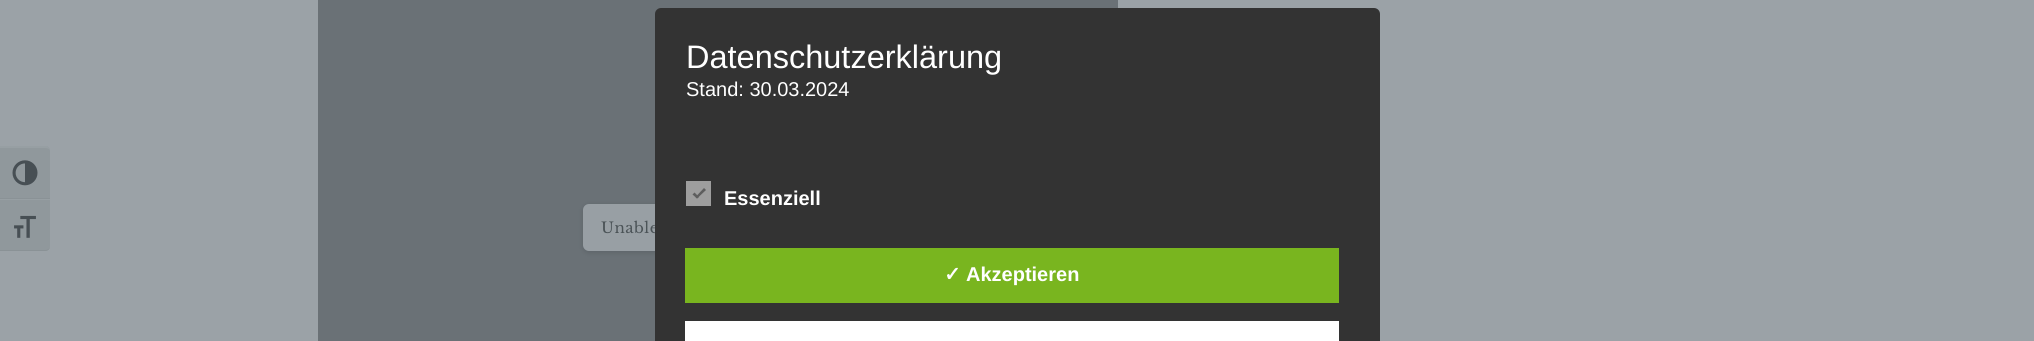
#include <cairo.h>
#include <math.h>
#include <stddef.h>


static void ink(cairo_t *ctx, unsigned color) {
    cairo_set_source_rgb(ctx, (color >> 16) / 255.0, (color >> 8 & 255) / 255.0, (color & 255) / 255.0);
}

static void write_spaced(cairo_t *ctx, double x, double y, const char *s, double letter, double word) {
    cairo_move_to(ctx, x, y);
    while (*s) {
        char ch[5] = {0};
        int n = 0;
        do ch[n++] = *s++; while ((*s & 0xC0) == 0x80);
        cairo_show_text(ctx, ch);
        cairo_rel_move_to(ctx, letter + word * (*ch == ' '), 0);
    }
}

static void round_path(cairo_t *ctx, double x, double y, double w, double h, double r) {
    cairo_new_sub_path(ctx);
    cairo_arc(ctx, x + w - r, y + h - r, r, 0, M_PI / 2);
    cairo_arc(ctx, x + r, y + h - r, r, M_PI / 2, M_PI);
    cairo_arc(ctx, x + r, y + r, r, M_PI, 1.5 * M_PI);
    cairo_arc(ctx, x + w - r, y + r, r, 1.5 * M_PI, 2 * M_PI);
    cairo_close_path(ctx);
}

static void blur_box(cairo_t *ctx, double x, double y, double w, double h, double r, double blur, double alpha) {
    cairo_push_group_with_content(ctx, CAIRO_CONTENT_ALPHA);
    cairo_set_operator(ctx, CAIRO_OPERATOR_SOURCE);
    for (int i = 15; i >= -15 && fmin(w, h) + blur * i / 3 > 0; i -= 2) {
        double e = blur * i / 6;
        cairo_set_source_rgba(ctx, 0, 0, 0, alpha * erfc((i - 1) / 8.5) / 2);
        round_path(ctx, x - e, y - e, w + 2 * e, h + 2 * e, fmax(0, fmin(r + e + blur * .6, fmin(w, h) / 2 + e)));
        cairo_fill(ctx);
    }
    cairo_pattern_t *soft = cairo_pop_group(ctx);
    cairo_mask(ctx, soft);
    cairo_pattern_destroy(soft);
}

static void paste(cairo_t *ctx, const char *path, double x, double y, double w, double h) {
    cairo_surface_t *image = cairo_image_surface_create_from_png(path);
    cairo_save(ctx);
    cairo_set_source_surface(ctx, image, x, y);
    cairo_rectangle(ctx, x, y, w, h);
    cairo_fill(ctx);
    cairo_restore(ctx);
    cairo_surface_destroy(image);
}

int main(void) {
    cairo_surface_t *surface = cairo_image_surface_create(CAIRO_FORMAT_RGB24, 2034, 341);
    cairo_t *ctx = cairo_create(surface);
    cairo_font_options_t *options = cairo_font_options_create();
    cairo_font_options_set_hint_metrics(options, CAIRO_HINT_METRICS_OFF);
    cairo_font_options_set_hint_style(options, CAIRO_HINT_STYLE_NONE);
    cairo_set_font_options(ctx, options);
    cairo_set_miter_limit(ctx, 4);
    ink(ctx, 0x9BA2A7);
    cairo_paint(ctx);
    ink(ctx, 0x90989C);
    cairo_new_path(ctx);
    cairo_move_to(ctx, 0, 146);
    cairo_line_to(ctx, 45, 146);
    cairo_curve_to(ctx, 48, 146, 50, 148, 50, 151);
    cairo_line_to(ctx, 50, 199);
    cairo_line_to(ctx, 0, 199);
    cairo_close_path(ctx);
    cairo_fill(ctx);
    ink(ctx, 0x979FA3);
    cairo_new_path(ctx);
    cairo_move_to(ctx, 0, 148);
    cairo_line_to(ctx, 45, 148);
    cairo_curve_to(ctx, 48, 148, 50, 149, 50, 151);
    cairo_curve_to(ctx, 50, 149, 49, 147, 47, 146);
    cairo_line_to(ctx, 0, 146);
    cairo_close_path(ctx);
    cairo_fill(ctx);
    ink(ctx, 0x8A9296);
    cairo_rectangle(ctx, 0, 198, 50, 1);
    cairo_fill(ctx);
    paste(ctx, "media/1.png", 12, 160, 26, 26);
    ink(ctx, 0x90989C);
    cairo_new_path(ctx);
    cairo_move_to(ctx, 0, 199);
    cairo_line_to(ctx, 50, 199);
    cairo_line_to(ctx, 50, 246);
    cairo_curve_to(ctx, 50, 249, 48, 251, 45, 251);
    cairo_line_to(ctx, 0, 251);
    cairo_close_path(ctx);
    cairo_fill(ctx);
    ink(ctx, 0x979FA3);
    cairo_rectangle(ctx, 0, 199, 50, 1);
    cairo_fill(ctx);
    ink(ctx, 0x8A9296);
    cairo_new_path(ctx);
    cairo_move_to(ctx, 0, 250);
    cairo_line_to(ctx, 0, 251);
    cairo_line_to(ctx, 45, 251);
    cairo_curve_to(ctx, 48, 251, 50, 249, 50, 246);
    cairo_curve_to(ctx, 50, 248, 48, 250, 45, 250);
    cairo_close_path(ctx);
    cairo_fill(ctx);
    paste(ctx, "media/2.png", 14, 215, 22, 23);
    ink(ctx, 0x6A7176);
    cairo_rectangle(ctx, 318, 0, 800, 341);
    cairo_fill(ctx);
    ink(ctx, 0x3F464B);
    blur_box(ctx, 583, 205, 271, 48, 6, 2.5, 0.3);
    ink(ctx, 0x989FA4);
    round_path(ctx, 583, 204, 271, 47, 6);
    cairo_fill(ctx);
    cairo_select_font_face(ctx, "Libre Baskerville", CAIRO_FONT_SLANT_NORMAL, CAIRO_FONT_WEIGHT_NORMAL);
    cairo_set_font_size(ctx, 15);
    ink(ctx, 0x4B5357);
    write_spaced(ctx, 601, 233, "Unable", 0.5, 0);
    ink(ctx, 0x333333);
    round_path(ctx, 655, 8, 725, 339, 6);
    cairo_fill(ctx);
    cairo_select_font_face(ctx, "Liberation Sans", CAIRO_FONT_SLANT_NORMAL, CAIRO_FONT_WEIGHT_NORMAL);
    cairo_set_font_size(ctx, 32.5);
    ink(ctx, 0xFFFFFF);
    cairo_move_to(ctx, 686, 68);
    cairo_show_text(ctx, "Datenschutzerklärung");
    cairo_set_font_size(ctx, 20);
    cairo_move_to(ctx, 686, 96);
    cairo_show_text(ctx, "Stand: 30.03.2024");
    ink(ctx, 0x9E9E9E);
    cairo_rectangle(ctx, 686, 181, 25, 25);
    cairo_fill(ctx);
    ink(ctx, 0x5E5E5E);
    cairo_new_path(ctx);
    cairo_move_to(ctx, 704, 188);
    cairo_line_to(ctx, 706, 190);
    cairo_line_to(ctx, 697, 198.5);
    cairo_line_to(ctx, 695.5, 197);
    cairo_close_path(ctx);
    cairo_fill(ctx);
    cairo_new_path(ctx);
    cairo_move_to(ctx, 694.5, 192.5);
    cairo_line_to(ctx, 699, 197);
    cairo_line_to(ctx, 697, 198.5);
    cairo_line_to(ctx, 692.5, 194.5);
    cairo_close_path(ctx);
    cairo_fill(ctx);
    cairo_select_font_face(ctx, "Liberation Sans", CAIRO_FONT_SLANT_NORMAL, CAIRO_FONT_WEIGHT_BOLD);
    ink(ctx, 0xFFFFFF);
    cairo_move_to(ctx, 724, 205);
    cairo_show_text(ctx, "Essenziell");
    ink(ctx, 0x79B51F);
    cairo_rectangle(ctx, 685, 248, 654, 55);
    cairo_fill(ctx);
    cairo_select_font_face(ctx, "DejaVu Sans", CAIRO_FONT_SLANT_NORMAL, CAIRO_FONT_WEIGHT_BOLD);
    ink(ctx, 0xFFFFFF);
    cairo_move_to(ctx, 944, 281);
    cairo_show_text(ctx, "✓");
    cairo_select_font_face(ctx, "Liberation Sans", CAIRO_FONT_SLANT_NORMAL, CAIRO_FONT_WEIGHT_BOLD);
    cairo_move_to(ctx, 966, 281);
    cairo_show_text(ctx, "Akzeptieren");
    cairo_rectangle(ctx, 685, 321, 654, 20);
    cairo_fill(ctx);
    cairo_surface_write_to_png(surface, "image.png");
    cairo_font_options_destroy(options);
    cairo_destroy(ctx);
    cairo_surface_destroy(surface);
    return 0;
}
